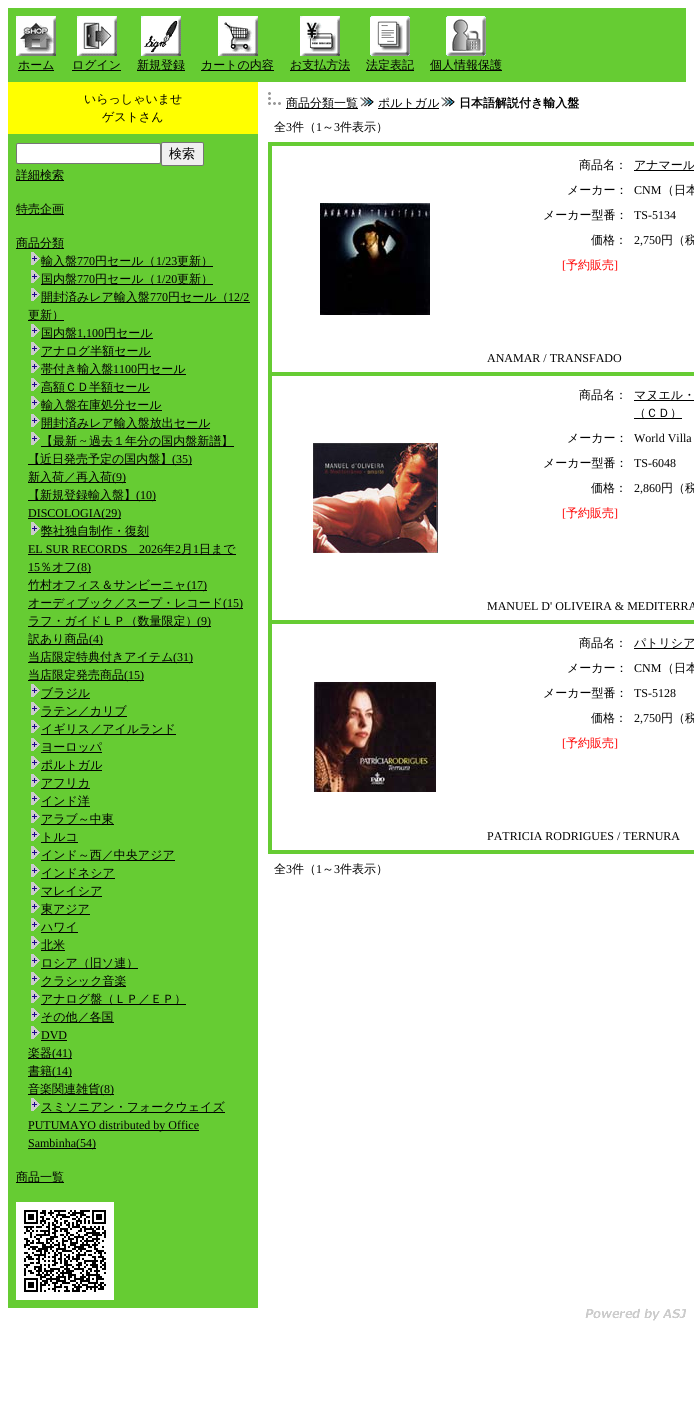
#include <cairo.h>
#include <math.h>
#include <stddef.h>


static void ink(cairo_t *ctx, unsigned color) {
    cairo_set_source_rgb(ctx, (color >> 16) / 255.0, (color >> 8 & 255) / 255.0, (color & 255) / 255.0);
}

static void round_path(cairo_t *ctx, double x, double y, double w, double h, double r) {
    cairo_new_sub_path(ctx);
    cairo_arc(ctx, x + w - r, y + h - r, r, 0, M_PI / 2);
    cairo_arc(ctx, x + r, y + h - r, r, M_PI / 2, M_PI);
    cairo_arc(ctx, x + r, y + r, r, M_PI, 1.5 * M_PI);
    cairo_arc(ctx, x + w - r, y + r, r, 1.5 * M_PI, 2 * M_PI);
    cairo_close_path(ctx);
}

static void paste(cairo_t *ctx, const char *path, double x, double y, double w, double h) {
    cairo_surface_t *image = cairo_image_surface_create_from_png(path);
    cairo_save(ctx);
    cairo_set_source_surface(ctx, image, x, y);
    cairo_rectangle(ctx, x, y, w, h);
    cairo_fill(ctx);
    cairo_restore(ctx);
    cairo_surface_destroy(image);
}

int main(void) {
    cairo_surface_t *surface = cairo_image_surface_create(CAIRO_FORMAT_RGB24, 694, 1428);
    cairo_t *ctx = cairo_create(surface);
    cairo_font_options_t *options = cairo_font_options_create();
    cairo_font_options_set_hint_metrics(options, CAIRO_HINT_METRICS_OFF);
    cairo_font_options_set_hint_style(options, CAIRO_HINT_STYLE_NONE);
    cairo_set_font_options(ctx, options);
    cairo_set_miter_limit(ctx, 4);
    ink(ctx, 0xFFFFFF);
    cairo_paint(ctx);
    ink(ctx, 0x66CC33);
    cairo_rectangle(ctx, 8, 8, 678, 74);
    cairo_fill(ctx);
    paste(ctx, "media/1.png", 16, 16, 40, 40);
    ink(ctx, 0x000000);
    cairo_rectangle(ctx, 18, 70, 36, 1);
    cairo_fill(ctx);
    cairo_select_font_face(ctx, "WenQuanYi Zen Hei Medium", CAIRO_FONT_SLANT_NORMAL, CAIRO_FONT_WEIGHT_NORMAL);
    cairo_set_font_size(ctx, 12);
    cairo_move_to(ctx, 18, 69);
    cairo_show_text(ctx, "ホーム");
    paste(ctx, "media/2.png", 77, 16, 40, 40);
    cairo_rectangle(ctx, 72, 70, 49, 1);
    cairo_fill(ctx);
    cairo_move_to(ctx, 72, 69);
    cairo_show_text(ctx, "ログイン");
    paste(ctx, "media/3.png", 141, 16, 40, 40);
    cairo_rectangle(ctx, 137, 70, 48, 1);
    cairo_fill(ctx);
    cairo_move_to(ctx, 137, 69);
    cairo_show_text(ctx, "新規登録");
    paste(ctx, "media/4.png", 218, 16, 40, 40);
    cairo_rectangle(ctx, 201, 70, 73, 1);
    cairo_fill(ctx);
    cairo_move_to(ctx, 201, 69);
    cairo_show_text(ctx, "カートの内容");
    paste(ctx, "media/5.png", 300, 16, 40, 40);
    cairo_rectangle(ctx, 290, 70, 60, 1);
    cairo_fill(ctx);
    cairo_move_to(ctx, 290, 69);
    cairo_show_text(ctx, "お支払方法");
    paste(ctx, "media/6.png", 370, 16, 40, 40);
    cairo_rectangle(ctx, 366, 70, 48, 1);
    cairo_fill(ctx);
    cairo_move_to(ctx, 366, 69);
    cairo_show_text(ctx, "法定表記");
    paste(ctx, "media/7.png", 446, 16, 40, 40);
    cairo_rectangle(ctx, 430, 70, 72, 1);
    cairo_fill(ctx);
    cairo_move_to(ctx, 430, 69);
    cairo_show_text(ctx, "個人情報保護");
    ink(ctx, 0x66CC33);
    cairo_rectangle(ctx, 8, 134, 250, 1174);
    cairo_fill(ctx);
    ink(ctx, 0xFFFF00);
    cairo_rectangle(ctx, 8, 82, 250, 52);
    cairo_fill(ctx);
    ink(ctx, 0x000000);
    cairo_move_to(ctx, 84, 103);
    cairo_show_text(ctx, "いらっしゃいませ");
    cairo_move_to(ctx, 102, 121);
    cairo_show_text(ctx, "ゲストさん");
    ink(ctx, 0xFFFFFF);
    round_path(ctx, 16.5, 143.5, 144, 20, 1.5);
    cairo_fill_preserve(ctx);
    ink(ctx, 0x767676);
    cairo_set_line_width(ctx, 1);
    cairo_stroke(ctx);
    ink(ctx, 0xEFEFEF);
    round_path(ctx, 161.5, 142.5, 42, 23, 1.5);
    cairo_fill_preserve(ctx);
    ink(ctx, 0x767676);
    cairo_stroke(ctx);
    cairo_set_font_size(ctx, 13);
    ink(ctx, 0x000000);
    cairo_move_to(ctx, 169, 158);
    cairo_show_text(ctx, "検索");
    cairo_rectangle(ctx, 16, 180, 48, 1);
    cairo_fill(ctx);
    cairo_set_font_size(ctx, 12);
    cairo_move_to(ctx, 16, 179);
    cairo_show_text(ctx, "詳細検索");
    cairo_rectangle(ctx, 16, 214, 48, 1);
    cairo_fill(ctx);
    cairo_move_to(ctx, 16, 213);
    cairo_show_text(ctx, "特売企画");
    cairo_rectangle(ctx, 16, 248, 48, 1);
    cairo_fill(ctx);
    cairo_move_to(ctx, 16, 247);
    cairo_show_text(ctx, "商品分類");
    paste(ctx, "media/8.png", 31, 252, 9, 13);
    cairo_rectangle(ctx, 41, 266, 172, 1);
    cairo_fill(ctx);
    cairo_move_to(ctx, 41, 265);
    cairo_show_text(ctx, "輸入盤");
    cairo_select_font_face(ctx, "Liberation Serif", CAIRO_FONT_SLANT_NORMAL, CAIRO_FONT_WEIGHT_NORMAL);
    cairo_move_to(ctx, 77, 265);
    cairo_show_text(ctx, "770");
    cairo_select_font_face(ctx, "WenQuanYi Zen Hei Medium", CAIRO_FONT_SLANT_NORMAL, CAIRO_FONT_WEIGHT_NORMAL);
    cairo_move_to(ctx, 95, 265);
    cairo_show_text(ctx, "円セール（");
    cairo_select_font_face(ctx, "Liberation Serif", CAIRO_FONT_SLANT_NORMAL, CAIRO_FONT_WEIGHT_NORMAL);
    cairo_move_to(ctx, 156, 265);
    cairo_show_text(ctx, "1/23");
    cairo_select_font_face(ctx, "WenQuanYi Zen Hei Medium", CAIRO_FONT_SLANT_NORMAL, CAIRO_FONT_WEIGHT_NORMAL);
    cairo_move_to(ctx, 177, 265);
    cairo_show_text(ctx, "更新）");
    paste(ctx, "media/8.png", 31, 270, 9, 13);
    cairo_rectangle(ctx, 41, 284, 172, 1);
    cairo_fill(ctx);
    cairo_move_to(ctx, 41, 283);
    cairo_show_text(ctx, "国内盤");
    cairo_select_font_face(ctx, "Liberation Serif", CAIRO_FONT_SLANT_NORMAL, CAIRO_FONT_WEIGHT_NORMAL);
    cairo_move_to(ctx, 77, 283);
    cairo_show_text(ctx, "770");
    cairo_select_font_face(ctx, "WenQuanYi Zen Hei Medium", CAIRO_FONT_SLANT_NORMAL, CAIRO_FONT_WEIGHT_NORMAL);
    cairo_move_to(ctx, 95, 283);
    cairo_show_text(ctx, "円セール（");
    cairo_select_font_face(ctx, "Liberation Serif", CAIRO_FONT_SLANT_NORMAL, CAIRO_FONT_WEIGHT_NORMAL);
    cairo_move_to(ctx, 156, 283);
    cairo_show_text(ctx, "1/20");
    cairo_select_font_face(ctx, "WenQuanYi Zen Hei Medium", CAIRO_FONT_SLANT_NORMAL, CAIRO_FONT_WEIGHT_NORMAL);
    cairo_move_to(ctx, 177, 283);
    cairo_show_text(ctx, "更新）");
    paste(ctx, "media/8.png", 31, 288, 9, 13);
    cairo_rectangle(ctx, 41, 302, 209, 1);
    cairo_fill(ctx);
    cairo_move_to(ctx, 41, 301);
    cairo_show_text(ctx, "開封済みレア輸入盤");
    cairo_select_font_face(ctx, "Liberation Serif", CAIRO_FONT_SLANT_NORMAL, CAIRO_FONT_WEIGHT_NORMAL);
    cairo_move_to(ctx, 150, 301);
    cairo_show_text(ctx, "770");
    cairo_select_font_face(ctx, "WenQuanYi Zen Hei Medium", CAIRO_FONT_SLANT_NORMAL, CAIRO_FONT_WEIGHT_NORMAL);
    cairo_move_to(ctx, 168, 301);
    cairo_show_text(ctx, "円セール（");
    cairo_select_font_face(ctx, "Liberation Serif", CAIRO_FONT_SLANT_NORMAL, CAIRO_FONT_WEIGHT_NORMAL);
    cairo_move_to(ctx, 228, 301);
    cairo_show_text(ctx, "12/2");
    cairo_rectangle(ctx, 28, 320, 36, 1);
    cairo_fill(ctx);
    cairo_select_font_face(ctx, "WenQuanYi Zen Hei Medium", CAIRO_FONT_SLANT_NORMAL, CAIRO_FONT_WEIGHT_NORMAL);
    cairo_move_to(ctx, 28, 319);
    cairo_show_text(ctx, "更新）");
    paste(ctx, "media/8.png", 31, 324, 9, 13);
    cairo_rectangle(ctx, 41, 338, 112, 1);
    cairo_fill(ctx);
    cairo_move_to(ctx, 41, 337);
    cairo_show_text(ctx, "国内盤");
    cairo_select_font_face(ctx, "Liberation Serif", CAIRO_FONT_SLANT_NORMAL, CAIRO_FONT_WEIGHT_NORMAL);
    cairo_move_to(ctx, 77, 337);
    cairo_show_text(ctx, "1,100");
    cairo_select_font_face(ctx, "WenQuanYi Zen Hei Medium", CAIRO_FONT_SLANT_NORMAL, CAIRO_FONT_WEIGHT_NORMAL);
    cairo_move_to(ctx, 104, 337);
    cairo_show_text(ctx, "円セール");
    paste(ctx, "media/8.png", 31, 342, 9, 13);
    cairo_rectangle(ctx, 41, 356, 110, 1);
    cairo_fill(ctx);
    cairo_move_to(ctx, 41, 355);
    cairo_show_text(ctx, "アナログ半額セール");
    paste(ctx, "media/8.png", 31, 360, 9, 13);
    cairo_rectangle(ctx, 41, 374, 145, 1);
    cairo_fill(ctx);
    cairo_move_to(ctx, 41, 373);
    cairo_show_text(ctx, "帯付き輸入盤");
    cairo_select_font_face(ctx, "Liberation Serif", CAIRO_FONT_SLANT_NORMAL, CAIRO_FONT_WEIGHT_NORMAL);
    cairo_move_to(ctx, 113, 373);
    cairo_show_text(ctx, "1100");
    cairo_select_font_face(ctx, "WenQuanYi Zen Hei Medium", CAIRO_FONT_SLANT_NORMAL, CAIRO_FONT_WEIGHT_NORMAL);
    cairo_move_to(ctx, 137, 373);
    cairo_show_text(ctx, "円セール");
    paste(ctx, "media/8.png", 31, 378, 9, 13);
    cairo_rectangle(ctx, 41, 392, 109, 1);
    cairo_fill(ctx);
    cairo_move_to(ctx, 41, 391);
    cairo_show_text(ctx, "高額ＣＤ半額セール");
    paste(ctx, "media/8.png", 31, 396, 9, 13);
    cairo_rectangle(ctx, 41, 410, 121, 1);
    cairo_fill(ctx);
    cairo_move_to(ctx, 41, 409);
    cairo_show_text(ctx, "輸入盤在庫処分セール");
    paste(ctx, "media/8.png", 31, 414, 9, 13);
    cairo_rectangle(ctx, 41, 428, 169, 1);
    cairo_fill(ctx);
    cairo_move_to(ctx, 41, 427);
    cairo_show_text(ctx, "開封済みレア輸入盤放出セール");
    paste(ctx, "media/8.png", 31, 432, 9, 13);
    cairo_rectangle(ctx, 41, 446, 193, 1);
    cairo_fill(ctx);
    cairo_move_to(ctx, 41, 445);
    cairo_show_text(ctx, "【最新");
    cairo_select_font_face(ctx, "Liberation Serif", CAIRO_FONT_SLANT_NORMAL, CAIRO_FONT_WEIGHT_NORMAL);
    cairo_move_to(ctx, 80, 445);
    cairo_show_text(ctx, "~");
    cairo_select_font_face(ctx, "WenQuanYi Zen Hei Medium", CAIRO_FONT_SLANT_NORMAL, CAIRO_FONT_WEIGHT_NORMAL);
    cairo_move_to(ctx, 89, 445);
    cairo_show_text(ctx, "過去１年分の国内盤新譜】");
    cairo_rectangle(ctx, 28, 464, 164, 1);
    cairo_fill(ctx);
    cairo_move_to(ctx, 28, 463);
    cairo_show_text(ctx, "【近日発売予定の国内盤】");
    cairo_select_font_face(ctx, "Liberation Serif", CAIRO_FONT_SLANT_NORMAL, CAIRO_FONT_WEIGHT_NORMAL);
    cairo_move_to(ctx, 172, 463);
    cairo_show_text(ctx, "(35)");
    cairo_rectangle(ctx, 28, 482, 98, 1);
    cairo_fill(ctx);
    cairo_select_font_face(ctx, "WenQuanYi Zen Hei Medium", CAIRO_FONT_SLANT_NORMAL, CAIRO_FONT_WEIGHT_NORMAL);
    cairo_move_to(ctx, 28, 481);
    cairo_show_text(ctx, "新入荷／再入荷");
    cairo_select_font_face(ctx, "Liberation Serif", CAIRO_FONT_SLANT_NORMAL, CAIRO_FONT_WEIGHT_NORMAL);
    cairo_move_to(ctx, 112, 481);
    cairo_show_text(ctx, "(9)");
    cairo_rectangle(ctx, 28, 500, 128, 1);
    cairo_fill(ctx);
    cairo_select_font_face(ctx, "WenQuanYi Zen Hei Medium", CAIRO_FONT_SLANT_NORMAL, CAIRO_FONT_WEIGHT_NORMAL);
    cairo_move_to(ctx, 28, 499);
    cairo_show_text(ctx, "【新規登録輸入盤】");
    cairo_select_font_face(ctx, "Liberation Serif", CAIRO_FONT_SLANT_NORMAL, CAIRO_FONT_WEIGHT_NORMAL);
    cairo_move_to(ctx, 136, 499);
    cairo_show_text(ctx, "(10)");
    cairo_rectangle(ctx, 28, 518, 93, 1);
    cairo_fill(ctx);
    cairo_move_to(ctx, 28, 517);
    cairo_show_text(ctx, "DISCOLOGIA(29)");
    paste(ctx, "media/8.png", 31, 522, 9, 13);
    cairo_rectangle(ctx, 41, 536, 108, 1);
    cairo_fill(ctx);
    cairo_select_font_face(ctx, "WenQuanYi Zen Hei Medium", CAIRO_FONT_SLANT_NORMAL, CAIRO_FONT_WEIGHT_NORMAL);
    cairo_move_to(ctx, 41, 535);
    cairo_show_text(ctx, "弊社独自制作・復刻");
    cairo_select_font_face(ctx, "Liberation Serif", CAIRO_FONT_SLANT_NORMAL, CAIRO_FONT_WEIGHT_NORMAL);
    cairo_move_to(ctx, 28, 553);
    cairo_show_text(ctx, "EL SUR RECORDS");
    cairo_rectangle(ctx, 28, 554, 208, 1);
    cairo_fill(ctx);
    cairo_move_to(ctx, 139, 553);
    cairo_show_text(ctx, "2026");
    cairo_select_font_face(ctx, "WenQuanYi Zen Hei Medium", CAIRO_FONT_SLANT_NORMAL, CAIRO_FONT_WEIGHT_NORMAL);
    cairo_move_to(ctx, 163, 553);
    cairo_show_text(ctx, "年");
    cairo_select_font_face(ctx, "Liberation Serif", CAIRO_FONT_SLANT_NORMAL, CAIRO_FONT_WEIGHT_NORMAL);
    cairo_move_to(ctx, 175, 553);
    cairo_show_text(ctx, "2");
    cairo_select_font_face(ctx, "WenQuanYi Zen Hei Medium", CAIRO_FONT_SLANT_NORMAL, CAIRO_FONT_WEIGHT_NORMAL);
    cairo_move_to(ctx, 181, 553);
    cairo_show_text(ctx, "月");
    cairo_select_font_face(ctx, "Liberation Serif", CAIRO_FONT_SLANT_NORMAL, CAIRO_FONT_WEIGHT_NORMAL);
    cairo_move_to(ctx, 193, 553);
    cairo_show_text(ctx, "1");
    cairo_select_font_face(ctx, "WenQuanYi Zen Hei Medium", CAIRO_FONT_SLANT_NORMAL, CAIRO_FONT_WEIGHT_NORMAL);
    cairo_move_to(ctx, 199, 553);
    cairo_show_text(ctx, "日まで");
    cairo_select_font_face(ctx, "Liberation Serif", CAIRO_FONT_SLANT_NORMAL, CAIRO_FONT_WEIGHT_NORMAL);
    cairo_move_to(ctx, 28, 571);
    cairo_show_text(ctx, "15");
    cairo_rectangle(ctx, 28, 572, 63, 1);
    cairo_fill(ctx);
    cairo_select_font_face(ctx, "WenQuanYi Zen Hei Medium", CAIRO_FONT_SLANT_NORMAL, CAIRO_FONT_WEIGHT_NORMAL);
    cairo_move_to(ctx, 40, 571);
    cairo_show_text(ctx, "％オフ");
    cairo_select_font_face(ctx, "Liberation Serif", CAIRO_FONT_SLANT_NORMAL, CAIRO_FONT_WEIGHT_NORMAL);
    cairo_move_to(ctx, 77, 571);
    cairo_show_text(ctx, "(8)");
    cairo_rectangle(ctx, 28, 590, 179, 1);
    cairo_fill(ctx);
    cairo_select_font_face(ctx, "WenQuanYi Zen Hei Medium", CAIRO_FONT_SLANT_NORMAL, CAIRO_FONT_WEIGHT_NORMAL);
    cairo_move_to(ctx, 28, 589);
    cairo_show_text(ctx, "竹村オフィス＆サンビーニャ");
    cairo_select_font_face(ctx, "Liberation Serif", CAIRO_FONT_SLANT_NORMAL, CAIRO_FONT_WEIGHT_NORMAL);
    cairo_move_to(ctx, 187, 589);
    cairo_show_text(ctx, "(17)");
    cairo_rectangle(ctx, 28, 608, 215, 1);
    cairo_fill(ctx);
    cairo_select_font_face(ctx, "WenQuanYi Zen Hei Medium", CAIRO_FONT_SLANT_NORMAL, CAIRO_FONT_WEIGHT_NORMAL);
    cairo_move_to(ctx, 28, 607);
    cairo_show_text(ctx, "オーディブック／スープ・レコード");
    cairo_select_font_face(ctx, "Liberation Serif", CAIRO_FONT_SLANT_NORMAL, CAIRO_FONT_WEIGHT_NORMAL);
    cairo_move_to(ctx, 223, 607);
    cairo_show_text(ctx, "(15)");
    cairo_rectangle(ctx, 28, 626, 183, 1);
    cairo_fill(ctx);
    cairo_select_font_face(ctx, "WenQuanYi Zen Hei Medium", CAIRO_FONT_SLANT_NORMAL, CAIRO_FONT_WEIGHT_NORMAL);
    cairo_move_to(ctx, 28, 625);
    cairo_show_text(ctx, "ラフ・ガイドＬＰ（数量限定）");
    cairo_select_font_face(ctx, "Liberation Serif", CAIRO_FONT_SLANT_NORMAL, CAIRO_FONT_WEIGHT_NORMAL);
    cairo_move_to(ctx, 197, 625);
    cairo_show_text(ctx, "(9)");
    cairo_rectangle(ctx, 28, 644, 75, 1);
    cairo_fill(ctx);
    cairo_select_font_face(ctx, "WenQuanYi Zen Hei Medium", CAIRO_FONT_SLANT_NORMAL, CAIRO_FONT_WEIGHT_NORMAL);
    cairo_move_to(ctx, 28, 643);
    cairo_show_text(ctx, "訳あり商品");
    cairo_select_font_face(ctx, "Liberation Serif", CAIRO_FONT_SLANT_NORMAL, CAIRO_FONT_WEIGHT_NORMAL);
    cairo_move_to(ctx, 89, 643);
    cairo_show_text(ctx, "(4)");
    cairo_rectangle(ctx, 28, 662, 165, 1);
    cairo_fill(ctx);
    cairo_select_font_face(ctx, "WenQuanYi Zen Hei Medium", CAIRO_FONT_SLANT_NORMAL, CAIRO_FONT_WEIGHT_NORMAL);
    cairo_move_to(ctx, 28, 661);
    cairo_show_text(ctx, "当店限定特典付きアイテム");
    cairo_select_font_face(ctx, "Liberation Serif", CAIRO_FONT_SLANT_NORMAL, CAIRO_FONT_WEIGHT_NORMAL);
    cairo_move_to(ctx, 173, 661);
    cairo_show_text(ctx, "(31)");
    cairo_rectangle(ctx, 28, 680, 116, 1);
    cairo_fill(ctx);
    cairo_select_font_face(ctx, "WenQuanYi Zen Hei Medium", CAIRO_FONT_SLANT_NORMAL, CAIRO_FONT_WEIGHT_NORMAL);
    cairo_move_to(ctx, 28, 679);
    cairo_show_text(ctx, "当店限定発売商品");
    cairo_select_font_face(ctx, "Liberation Serif", CAIRO_FONT_SLANT_NORMAL, CAIRO_FONT_WEIGHT_NORMAL);
    cairo_move_to(ctx, 124, 679);
    cairo_show_text(ctx, "(15)");
    paste(ctx, "media/8.png", 31, 684, 9, 13);
    cairo_rectangle(ctx, 41, 698, 49, 1);
    cairo_fill(ctx);
    cairo_select_font_face(ctx, "WenQuanYi Zen Hei Medium", CAIRO_FONT_SLANT_NORMAL, CAIRO_FONT_WEIGHT_NORMAL);
    cairo_move_to(ctx, 41, 697);
    cairo_show_text(ctx, "ブラジル");
    paste(ctx, "media/8.png", 31, 702, 9, 13);
    cairo_rectangle(ctx, 41, 716, 86, 1);
    cairo_fill(ctx);
    cairo_move_to(ctx, 41, 715);
    cairo_show_text(ctx, "ラテン／カリブ");
    paste(ctx, "media/8.png", 31, 720, 9, 13);
    cairo_rectangle(ctx, 41, 734, 135, 1);
    cairo_fill(ctx);
    cairo_move_to(ctx, 41, 733);
    cairo_show_text(ctx, "イギリス／アイルランド");
    paste(ctx, "media/8.png", 31, 738, 9, 13);
    cairo_rectangle(ctx, 41, 752, 61, 1);
    cairo_fill(ctx);
    cairo_move_to(ctx, 41, 751);
    cairo_show_text(ctx, "ヨーロッパ");
    paste(ctx, "media/8.png", 31, 756, 9, 13);
    cairo_rectangle(ctx, 41, 770, 61, 1);
    cairo_fill(ctx);
    cairo_move_to(ctx, 41, 769);
    cairo_show_text(ctx, "ポルトガル");
    paste(ctx, "media/8.png", 31, 774, 9, 13);
    cairo_rectangle(ctx, 41, 788, 49, 1);
    cairo_fill(ctx);
    cairo_move_to(ctx, 41, 787);
    cairo_show_text(ctx, "アフリカ");
    paste(ctx, "media/8.png", 31, 792, 9, 13);
    cairo_rectangle(ctx, 41, 806, 49, 1);
    cairo_fill(ctx);
    cairo_move_to(ctx, 41, 805);
    cairo_show_text(ctx, "インド洋");
    paste(ctx, "media/8.png", 31, 810, 9, 13);
    cairo_rectangle(ctx, 41, 824, 73, 1);
    cairo_fill(ctx);
    cairo_move_to(ctx, 41, 823);
    cairo_show_text(ctx, "アラブ～中東");
    paste(ctx, "media/8.png", 31, 828, 9, 13);
    cairo_rectangle(ctx, 41, 842, 37, 1);
    cairo_fill(ctx);
    cairo_move_to(ctx, 41, 841);
    cairo_show_text(ctx, "トルコ");
    paste(ctx, "media/8.png", 31, 846, 9, 13);
    cairo_rectangle(ctx, 41, 860, 134, 1);
    cairo_fill(ctx);
    cairo_move_to(ctx, 41, 859);
    cairo_show_text(ctx, "インド～西／中央アジア");
    paste(ctx, "media/8.png", 31, 864, 9, 13);
    cairo_rectangle(ctx, 41, 878, 74, 1);
    cairo_fill(ctx);
    cairo_move_to(ctx, 41, 877);
    cairo_show_text(ctx, "インドネシア");
    paste(ctx, "media/8.png", 31, 882, 9, 13);
    cairo_rectangle(ctx, 41, 896, 61, 1);
    cairo_fill(ctx);
    cairo_move_to(ctx, 41, 895);
    cairo_show_text(ctx, "マレイシア");
    paste(ctx, "media/8.png", 31, 900, 9, 13);
    cairo_rectangle(ctx, 41, 914, 49, 1);
    cairo_fill(ctx);
    cairo_move_to(ctx, 41, 913);
    cairo_show_text(ctx, "東アジア");
    paste(ctx, "media/8.png", 31, 918, 9, 13);
    cairo_rectangle(ctx, 41, 932, 37, 1);
    cairo_fill(ctx);
    cairo_move_to(ctx, 41, 931);
    cairo_show_text(ctx, "ハワイ");
    paste(ctx, "media/8.png", 31, 936, 9, 13);
    cairo_rectangle(ctx, 41, 950, 24, 1);
    cairo_fill(ctx);
    cairo_move_to(ctx, 41, 949);
    cairo_show_text(ctx, "北米");
    paste(ctx, "media/8.png", 31, 954, 9, 13);
    cairo_rectangle(ctx, 41, 968, 97, 1);
    cairo_fill(ctx);
    cairo_move_to(ctx, 41, 967);
    cairo_show_text(ctx, "ロシア（旧ソ連）");
    paste(ctx, "media/8.png", 31, 972, 9, 13);
    cairo_rectangle(ctx, 41, 986, 85, 1);
    cairo_fill(ctx);
    cairo_move_to(ctx, 41, 985);
    cairo_show_text(ctx, "クラシック音楽");
    paste(ctx, "media/8.png", 31, 990, 9, 13);
    cairo_rectangle(ctx, 41, 1004, 145, 1);
    cairo_fill(ctx);
    cairo_move_to(ctx, 41, 1003);
    cairo_show_text(ctx, "アナログ盤（ＬＰ／ＥＰ）");
    paste(ctx, "media/8.png", 31, 1008, 9, 13);
    cairo_rectangle(ctx, 41, 1022, 73, 1);
    cairo_fill(ctx);
    cairo_move_to(ctx, 41, 1021);
    cairo_show_text(ctx, "その他／各国");
    paste(ctx, "media/8.png", 31, 1026, 9, 13);
    cairo_select_font_face(ctx, "Liberation Serif", CAIRO_FONT_SLANT_NORMAL, CAIRO_FONT_WEIGHT_NORMAL);
    cairo_move_to(ctx, 41, 1039);
    cairo_show_text(ctx, "DVD");
    cairo_rectangle(ctx, 41, 1040, 26, 1);
    cairo_fill(ctx);
    cairo_rectangle(ctx, 28, 1058, 44, 1);
    cairo_fill(ctx);
    cairo_select_font_face(ctx, "WenQuanYi Zen Hei Medium", CAIRO_FONT_SLANT_NORMAL, CAIRO_FONT_WEIGHT_NORMAL);
    cairo_move_to(ctx, 28, 1057);
    cairo_show_text(ctx, "楽器");
    cairo_select_font_face(ctx, "Liberation Serif", CAIRO_FONT_SLANT_NORMAL, CAIRO_FONT_WEIGHT_NORMAL);
    cairo_move_to(ctx, 52, 1057);
    cairo_show_text(ctx, "(41)");
    cairo_rectangle(ctx, 28, 1076, 44, 1);
    cairo_fill(ctx);
    cairo_select_font_face(ctx, "WenQuanYi Zen Hei Medium", CAIRO_FONT_SLANT_NORMAL, CAIRO_FONT_WEIGHT_NORMAL);
    cairo_move_to(ctx, 28, 1075);
    cairo_show_text(ctx, "書籍");
    cairo_select_font_face(ctx, "Liberation Serif", CAIRO_FONT_SLANT_NORMAL, CAIRO_FONT_WEIGHT_NORMAL);
    cairo_move_to(ctx, 52, 1075);
    cairo_show_text(ctx, "(14)");
    cairo_rectangle(ctx, 28, 1094, 86, 1);
    cairo_fill(ctx);
    cairo_select_font_face(ctx, "WenQuanYi Zen Hei Medium", CAIRO_FONT_SLANT_NORMAL, CAIRO_FONT_WEIGHT_NORMAL);
    cairo_move_to(ctx, 28, 1093);
    cairo_show_text(ctx, "音楽関連雑貨");
    cairo_select_font_face(ctx, "Liberation Serif", CAIRO_FONT_SLANT_NORMAL, CAIRO_FONT_WEIGHT_NORMAL);
    cairo_move_to(ctx, 100, 1093);
    cairo_show_text(ctx, "(8)");
    paste(ctx, "media/8.png", 31, 1098, 9, 13);
    cairo_rectangle(ctx, 41, 1112, 184, 1);
    cairo_fill(ctx);
    cairo_select_font_face(ctx, "WenQuanYi Zen Hei Medium", CAIRO_FONT_SLANT_NORMAL, CAIRO_FONT_WEIGHT_NORMAL);
    cairo_move_to(ctx, 41, 1111);
    cairo_show_text(ctx, "スミソニアン・フォークウェイズ");
    cairo_rectangle(ctx, 28, 1130, 171, 1);
    cairo_fill(ctx);
    cairo_select_font_face(ctx, "Liberation Serif", CAIRO_FONT_SLANT_NORMAL, CAIRO_FONT_WEIGHT_NORMAL);
    cairo_move_to(ctx, 28, 1129);
    cairo_show_text(ctx, "PUTUMAYO distributed by Office");
    cairo_rectangle(ctx, 28, 1148, 68, 1);
    cairo_fill(ctx);
    cairo_move_to(ctx, 28, 1147);
    cairo_show_text(ctx, "Sambinha(54)");
    cairo_rectangle(ctx, 16, 1182, 48, 1);
    cairo_fill(ctx);
    cairo_select_font_face(ctx, "WenQuanYi Zen Hei Medium", CAIRO_FONT_SLANT_NORMAL, CAIRO_FONT_WEIGHT_NORMAL);
    cairo_move_to(ctx, 16, 1181);
    cairo_show_text(ctx, "商品一覧");
    paste(ctx, "media/9.png", 16, 1202, 98, 98);
    paste(ctx, "media/10.png", 268, 92, 13, 13);
    cairo_rectangle(ctx, 286, 108, 72, 1);
    cairo_fill(ctx);
    cairo_move_to(ctx, 286, 107);
    cairo_show_text(ctx, "商品分類一覧");
    paste(ctx, "media/11.png", 360, 97, 14, 10);
    cairo_rectangle(ctx, 378, 108, 61, 1);
    cairo_fill(ctx);
    cairo_move_to(ctx, 378, 107);
    cairo_show_text(ctx, "ポルトガル");
    paste(ctx, "media/11.png", 441, 97, 14, 10);
    cairo_select_font_face(ctx, "WenQuanYi Zen Hei", CAIRO_FONT_SLANT_NORMAL, CAIRO_FONT_WEIGHT_BOLD);
    cairo_move_to(ctx, 459, 107);
    cairo_show_text(ctx, "日本語解説付き輸入盤");
    cairo_select_font_face(ctx, "WenQuanYi Zen Hei Medium", CAIRO_FONT_SLANT_NORMAL, CAIRO_FONT_WEIGHT_NORMAL);
    cairo_move_to(ctx, 274, 131);
    cairo_show_text(ctx, "全");
    cairo_select_font_face(ctx, "Liberation Serif", CAIRO_FONT_SLANT_NORMAL, CAIRO_FONT_WEIGHT_NORMAL);
    cairo_move_to(ctx, 286, 131);
    cairo_show_text(ctx, "3");
    cairo_select_font_face(ctx, "WenQuanYi Zen Hei Medium", CAIRO_FONT_SLANT_NORMAL, CAIRO_FONT_WEIGHT_NORMAL);
    cairo_move_to(ctx, 292, 131);
    cairo_show_text(ctx, "件（");
    cairo_select_font_face(ctx, "Liberation Serif", CAIRO_FONT_SLANT_NORMAL, CAIRO_FONT_WEIGHT_NORMAL);
    cairo_move_to(ctx, 316, 131);
    cairo_show_text(ctx, "1");
    cairo_select_font_face(ctx, "WenQuanYi Zen Hei Medium", CAIRO_FONT_SLANT_NORMAL, CAIRO_FONT_WEIGHT_NORMAL);
    cairo_move_to(ctx, 322, 131);
    cairo_show_text(ctx, "～");
    cairo_select_font_face(ctx, "Liberation Serif", CAIRO_FONT_SLANT_NORMAL, CAIRO_FONT_WEIGHT_NORMAL);
    cairo_move_to(ctx, 334, 131);
    cairo_show_text(ctx, "3");
    cairo_select_font_face(ctx, "WenQuanYi Zen Hei Medium", CAIRO_FONT_SLANT_NORMAL, CAIRO_FONT_WEIGHT_NORMAL);
    cairo_move_to(ctx, 340, 131);
    cairo_show_text(ctx, "件表示）");
    ink(ctx, 0x66CC33);
    cairo_rectangle(ctx, 268, 142, 426, 712);
    cairo_fill(ctx);
    ink(ctx, 0xFFFFFF);
    cairo_rectangle(ctx, 272, 146, 422, 226);
    cairo_fill(ctx);
    paste(ctx, "media/12.png", 320, 203, 110, 112);
    ink(ctx, 0x000000);
    cairo_move_to(ctx, 579, 169);
    cairo_show_text(ctx, "商品名：");
    cairo_rectangle(ctx, 634, 170, 60, 1);
    cairo_fill(ctx);
    cairo_move_to(ctx, 634, 169);
    cairo_show_text(ctx, "アナマール");
    cairo_move_to(ctx, 567, 194);
    cairo_show_text(ctx, "メーカー：");
    cairo_select_font_face(ctx, "Liberation Serif", CAIRO_FONT_SLANT_NORMAL, CAIRO_FONT_WEIGHT_NORMAL);
    cairo_move_to(ctx, 634, 194);
    cairo_show_text(ctx, "CNM");
    cairo_select_font_face(ctx, "WenQuanYi Zen Hei Medium", CAIRO_FONT_SLANT_NORMAL, CAIRO_FONT_WEIGHT_NORMAL);
    cairo_move_to(ctx, 662, 194);
    cairo_show_text(ctx, "（日本");
    cairo_move_to(ctx, 543, 219);
    cairo_show_text(ctx, "メーカー型番：");
    cairo_select_font_face(ctx, "Liberation Serif", CAIRO_FONT_SLANT_NORMAL, CAIRO_FONT_WEIGHT_NORMAL);
    cairo_move_to(ctx, 634, 219);
    cairo_show_text(ctx, "TS-5134");
    cairo_select_font_face(ctx, "WenQuanYi Zen Hei Medium", CAIRO_FONT_SLANT_NORMAL, CAIRO_FONT_WEIGHT_NORMAL);
    cairo_move_to(ctx, 591, 244);
    cairo_show_text(ctx, "価格：");
    cairo_select_font_face(ctx, "Liberation Serif", CAIRO_FONT_SLANT_NORMAL, CAIRO_FONT_WEIGHT_NORMAL);
    cairo_move_to(ctx, 634, 244);
    cairo_show_text(ctx, "2,750");
    cairo_select_font_face(ctx, "WenQuanYi Zen Hei Medium", CAIRO_FONT_SLANT_NORMAL, CAIRO_FONT_WEIGHT_NORMAL);
    cairo_move_to(ctx, 661, 244);
    cairo_show_text(ctx, "円（税");
    cairo_select_font_face(ctx, "Liberation Serif", CAIRO_FONT_SLANT_NORMAL, CAIRO_FONT_WEIGHT_NORMAL);
    ink(ctx, 0xFF0000);
    cairo_move_to(ctx, 562, 269);
    cairo_show_text(ctx, "[");
    cairo_select_font_face(ctx, "WenQuanYi Zen Hei Medium", CAIRO_FONT_SLANT_NORMAL, CAIRO_FONT_WEIGHT_NORMAL);
    cairo_move_to(ctx, 566, 269);
    cairo_show_text(ctx, "予約販売");
    cairo_select_font_face(ctx, "Liberation Serif", CAIRO_FONT_SLANT_NORMAL, CAIRO_FONT_WEIGHT_NORMAL);
    cairo_move_to(ctx, 614, 269);
    cairo_show_text(ctx, "]");
    ink(ctx, 0x000000);
    cairo_move_to(ctx, 487, 362);
    cairo_show_text(ctx, "ANAMAR / TRANSFADO");
    ink(ctx, 0xFFFFFF);
    cairo_rectangle(ctx, 272, 376, 422, 244);
    cairo_fill(ctx);
    paste(ctx, "media/13.png", 313, 443, 125, 110);
    cairo_select_font_face(ctx, "WenQuanYi Zen Hei Medium", CAIRO_FONT_SLANT_NORMAL, CAIRO_FONT_WEIGHT_NORMAL);
    ink(ctx, 0x000000);
    cairo_move_to(ctx, 579, 399);
    cairo_show_text(ctx, "商品名：");
    cairo_rectangle(ctx, 634, 400, 60, 1);
    cairo_fill(ctx);
    cairo_move_to(ctx, 634, 399);
    cairo_show_text(ctx, "マヌエル・");
    cairo_rectangle(ctx, 634, 418, 48, 1);
    cairo_fill(ctx);
    cairo_move_to(ctx, 634, 417);
    cairo_show_text(ctx, "（ＣＤ）");
    cairo_move_to(ctx, 567, 442);
    cairo_show_text(ctx, "メーカー：");
    cairo_select_font_face(ctx, "Liberation Serif", CAIRO_FONT_SLANT_NORMAL, CAIRO_FONT_WEIGHT_NORMAL);
    cairo_move_to(ctx, 634, 442);
    cairo_show_text(ctx, "World Villa");
    cairo_select_font_face(ctx, "WenQuanYi Zen Hei Medium", CAIRO_FONT_SLANT_NORMAL, CAIRO_FONT_WEIGHT_NORMAL);
    cairo_move_to(ctx, 543, 467);
    cairo_show_text(ctx, "メーカー型番：");
    cairo_select_font_face(ctx, "Liberation Serif", CAIRO_FONT_SLANT_NORMAL, CAIRO_FONT_WEIGHT_NORMAL);
    cairo_move_to(ctx, 634, 467);
    cairo_show_text(ctx, "TS-6048");
    cairo_select_font_face(ctx, "WenQuanYi Zen Hei Medium", CAIRO_FONT_SLANT_NORMAL, CAIRO_FONT_WEIGHT_NORMAL);
    cairo_move_to(ctx, 591, 492);
    cairo_show_text(ctx, "価格：");
    cairo_select_font_face(ctx, "Liberation Serif", CAIRO_FONT_SLANT_NORMAL, CAIRO_FONT_WEIGHT_NORMAL);
    cairo_move_to(ctx, 634, 492);
    cairo_show_text(ctx, "2,860");
    cairo_select_font_face(ctx, "WenQuanYi Zen Hei Medium", CAIRO_FONT_SLANT_NORMAL, CAIRO_FONT_WEIGHT_NORMAL);
    cairo_move_to(ctx, 661, 492);
    cairo_show_text(ctx, "円（税");
    cairo_select_font_face(ctx, "Liberation Serif", CAIRO_FONT_SLANT_NORMAL, CAIRO_FONT_WEIGHT_NORMAL);
    ink(ctx, 0xFF0000);
    cairo_move_to(ctx, 562, 517);
    cairo_show_text(ctx, "[");
    cairo_select_font_face(ctx, "WenQuanYi Zen Hei Medium", CAIRO_FONT_SLANT_NORMAL, CAIRO_FONT_WEIGHT_NORMAL);
    cairo_move_to(ctx, 566, 517);
    cairo_show_text(ctx, "予約販売");
    cairo_select_font_face(ctx, "Liberation Serif", CAIRO_FONT_SLANT_NORMAL, CAIRO_FONT_WEIGHT_NORMAL);
    cairo_move_to(ctx, 614, 517);
    cairo_show_text(ctx, "]");
    ink(ctx, 0x000000);
    cairo_move_to(ctx, 487, 610);
    cairo_show_text(ctx, "MANUEL D' OLIVEIRA & MEDITERRA");
    ink(ctx, 0xFFFFFF);
    cairo_rectangle(ctx, 272, 624, 422, 226);
    cairo_fill(ctx);
    paste(ctx, "media/14.png", 314, 682, 122, 110);
    cairo_select_font_face(ctx, "WenQuanYi Zen Hei Medium", CAIRO_FONT_SLANT_NORMAL, CAIRO_FONT_WEIGHT_NORMAL);
    ink(ctx, 0x000000);
    cairo_move_to(ctx, 579, 647);
    cairo_show_text(ctx, "商品名：");
    cairo_rectangle(ctx, 634, 648, 60, 1);
    cairo_fill(ctx);
    cairo_move_to(ctx, 634, 647);
    cairo_show_text(ctx, "パトリシア");
    cairo_move_to(ctx, 567, 672);
    cairo_show_text(ctx, "メーカー：");
    cairo_select_font_face(ctx, "Liberation Serif", CAIRO_FONT_SLANT_NORMAL, CAIRO_FONT_WEIGHT_NORMAL);
    cairo_move_to(ctx, 634, 672);
    cairo_show_text(ctx, "CNM");
    cairo_select_font_face(ctx, "WenQuanYi Zen Hei Medium", CAIRO_FONT_SLANT_NORMAL, CAIRO_FONT_WEIGHT_NORMAL);
    cairo_move_to(ctx, 662, 672);
    cairo_show_text(ctx, "（日本");
    cairo_move_to(ctx, 543, 697);
    cairo_show_text(ctx, "メーカー型番：");
    cairo_select_font_face(ctx, "Liberation Serif", CAIRO_FONT_SLANT_NORMAL, CAIRO_FONT_WEIGHT_NORMAL);
    cairo_move_to(ctx, 634, 697);
    cairo_show_text(ctx, "TS-5128");
    cairo_select_font_face(ctx, "WenQuanYi Zen Hei Medium", CAIRO_FONT_SLANT_NORMAL, CAIRO_FONT_WEIGHT_NORMAL);
    cairo_move_to(ctx, 591, 722);
    cairo_show_text(ctx, "価格：");
    cairo_select_font_face(ctx, "Liberation Serif", CAIRO_FONT_SLANT_NORMAL, CAIRO_FONT_WEIGHT_NORMAL);
    cairo_move_to(ctx, 634, 722);
    cairo_show_text(ctx, "2,750");
    cairo_select_font_face(ctx, "WenQuanYi Zen Hei Medium", CAIRO_FONT_SLANT_NORMAL, CAIRO_FONT_WEIGHT_NORMAL);
    cairo_move_to(ctx, 661, 722);
    cairo_show_text(ctx, "円（税");
    cairo_select_font_face(ctx, "Liberation Serif", CAIRO_FONT_SLANT_NORMAL, CAIRO_FONT_WEIGHT_NORMAL);
    ink(ctx, 0xFF0000);
    cairo_move_to(ctx, 562, 747);
    cairo_show_text(ctx, "[");
    cairo_select_font_face(ctx, "WenQuanYi Zen Hei Medium", CAIRO_FONT_SLANT_NORMAL, CAIRO_FONT_WEIGHT_NORMAL);
    cairo_move_to(ctx, 566, 747);
    cairo_show_text(ctx, "予約販売");
    cairo_select_font_face(ctx, "Liberation Serif", CAIRO_FONT_SLANT_NORMAL, CAIRO_FONT_WEIGHT_NORMAL);
    cairo_move_to(ctx, 614, 747);
    cairo_show_text(ctx, "]");
    ink(ctx, 0x000000);
    cairo_move_to(ctx, 487, 840);
    cairo_show_text(ctx, "PATRICIA RODRIGUES / TERNURA");
    cairo_select_font_face(ctx, "WenQuanYi Zen Hei Medium", CAIRO_FONT_SLANT_NORMAL, CAIRO_FONT_WEIGHT_NORMAL);
    cairo_move_to(ctx, 274, 873);
    cairo_show_text(ctx, "全");
    cairo_select_font_face(ctx, "Liberation Serif", CAIRO_FONT_SLANT_NORMAL, CAIRO_FONT_WEIGHT_NORMAL);
    cairo_move_to(ctx, 286, 873);
    cairo_show_text(ctx, "3");
    cairo_select_font_face(ctx, "WenQuanYi Zen Hei Medium", CAIRO_FONT_SLANT_NORMAL, CAIRO_FONT_WEIGHT_NORMAL);
    cairo_move_to(ctx, 292, 873);
    cairo_show_text(ctx, "件（");
    cairo_select_font_face(ctx, "Liberation Serif", CAIRO_FONT_SLANT_NORMAL, CAIRO_FONT_WEIGHT_NORMAL);
    cairo_move_to(ctx, 316, 873);
    cairo_show_text(ctx, "1");
    cairo_select_font_face(ctx, "WenQuanYi Zen Hei Medium", CAIRO_FONT_SLANT_NORMAL, CAIRO_FONT_WEIGHT_NORMAL);
    cairo_move_to(ctx, 322, 873);
    cairo_show_text(ctx, "～");
    cairo_select_font_face(ctx, "Liberation Serif", CAIRO_FONT_SLANT_NORMAL, CAIRO_FONT_WEIGHT_NORMAL);
    cairo_move_to(ctx, 334, 873);
    cairo_show_text(ctx, "3");
    cairo_select_font_face(ctx, "WenQuanYi Zen Hei Medium", CAIRO_FONT_SLANT_NORMAL, CAIRO_FONT_WEIGHT_NORMAL);
    cairo_move_to(ctx, 340, 873);
    cairo_show_text(ctx, "件表示）");
    paste(ctx, "media/15.png", 585, 1308, 101, 13);
    cairo_surface_write_to_png(surface, "image.png");
    cairo_font_options_destroy(options);
    cairo_destroy(ctx);
    cairo_surface_destroy(surface);
    return 0;
}
